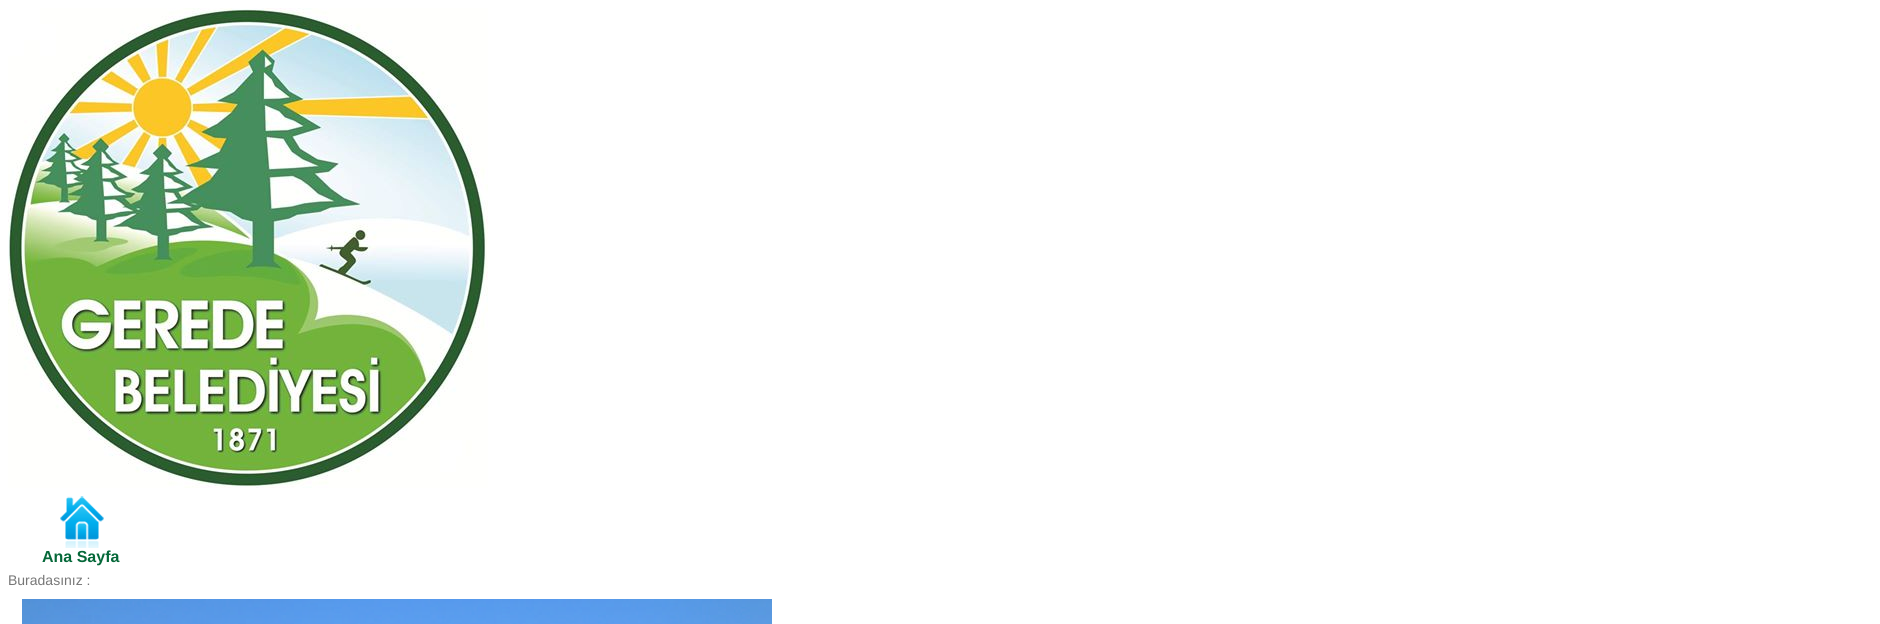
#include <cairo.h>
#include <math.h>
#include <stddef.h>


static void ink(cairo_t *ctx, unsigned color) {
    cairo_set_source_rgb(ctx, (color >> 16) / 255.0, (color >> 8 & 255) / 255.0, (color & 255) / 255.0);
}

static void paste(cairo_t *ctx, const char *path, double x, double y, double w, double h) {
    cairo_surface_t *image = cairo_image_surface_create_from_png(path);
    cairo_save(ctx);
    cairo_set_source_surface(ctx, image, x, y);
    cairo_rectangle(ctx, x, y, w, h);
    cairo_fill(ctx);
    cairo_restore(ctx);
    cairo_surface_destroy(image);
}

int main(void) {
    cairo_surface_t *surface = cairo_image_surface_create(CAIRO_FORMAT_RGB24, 1880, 624);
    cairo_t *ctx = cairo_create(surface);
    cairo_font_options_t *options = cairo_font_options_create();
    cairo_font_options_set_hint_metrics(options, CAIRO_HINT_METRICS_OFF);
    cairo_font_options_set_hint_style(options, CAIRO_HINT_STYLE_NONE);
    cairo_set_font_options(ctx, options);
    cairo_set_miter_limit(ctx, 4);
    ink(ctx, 0xFFFFFF);
    cairo_paint(ctx);
    paste(ctx, "media/1.png", 8, 8, 480, 480);
    paste(ctx, "media/2.png", 60, 496, 44, 52);
    cairo_select_font_face(ctx, "Liberation Sans", CAIRO_FONT_SLANT_NORMAL, CAIRO_FONT_WEIGHT_BOLD);
    cairo_set_font_size(ctx, 16);
    ink(ctx, 0x056839);
    cairo_move_to(ctx, 42, 562);
    cairo_show_text(ctx, "Ana Sayfa");
    cairo_select_font_face(ctx, "Liberation Sans", CAIRO_FONT_SLANT_NORMAL, CAIRO_FONT_WEIGHT_NORMAL);
    cairo_set_font_size(ctx, 14);
    ink(ctx, 0x777777);
    cairo_move_to(ctx, 8, 585);
    cairo_show_text(ctx, "Buradasınız :");
    paste(ctx, "media/3.png", 22, 599, 750, 25);
    cairo_surface_write_to_png(surface, "image.png");
    cairo_font_options_destroy(options);
    cairo_destroy(ctx);
    cairo_surface_destroy(surface);
    return 0;
}
